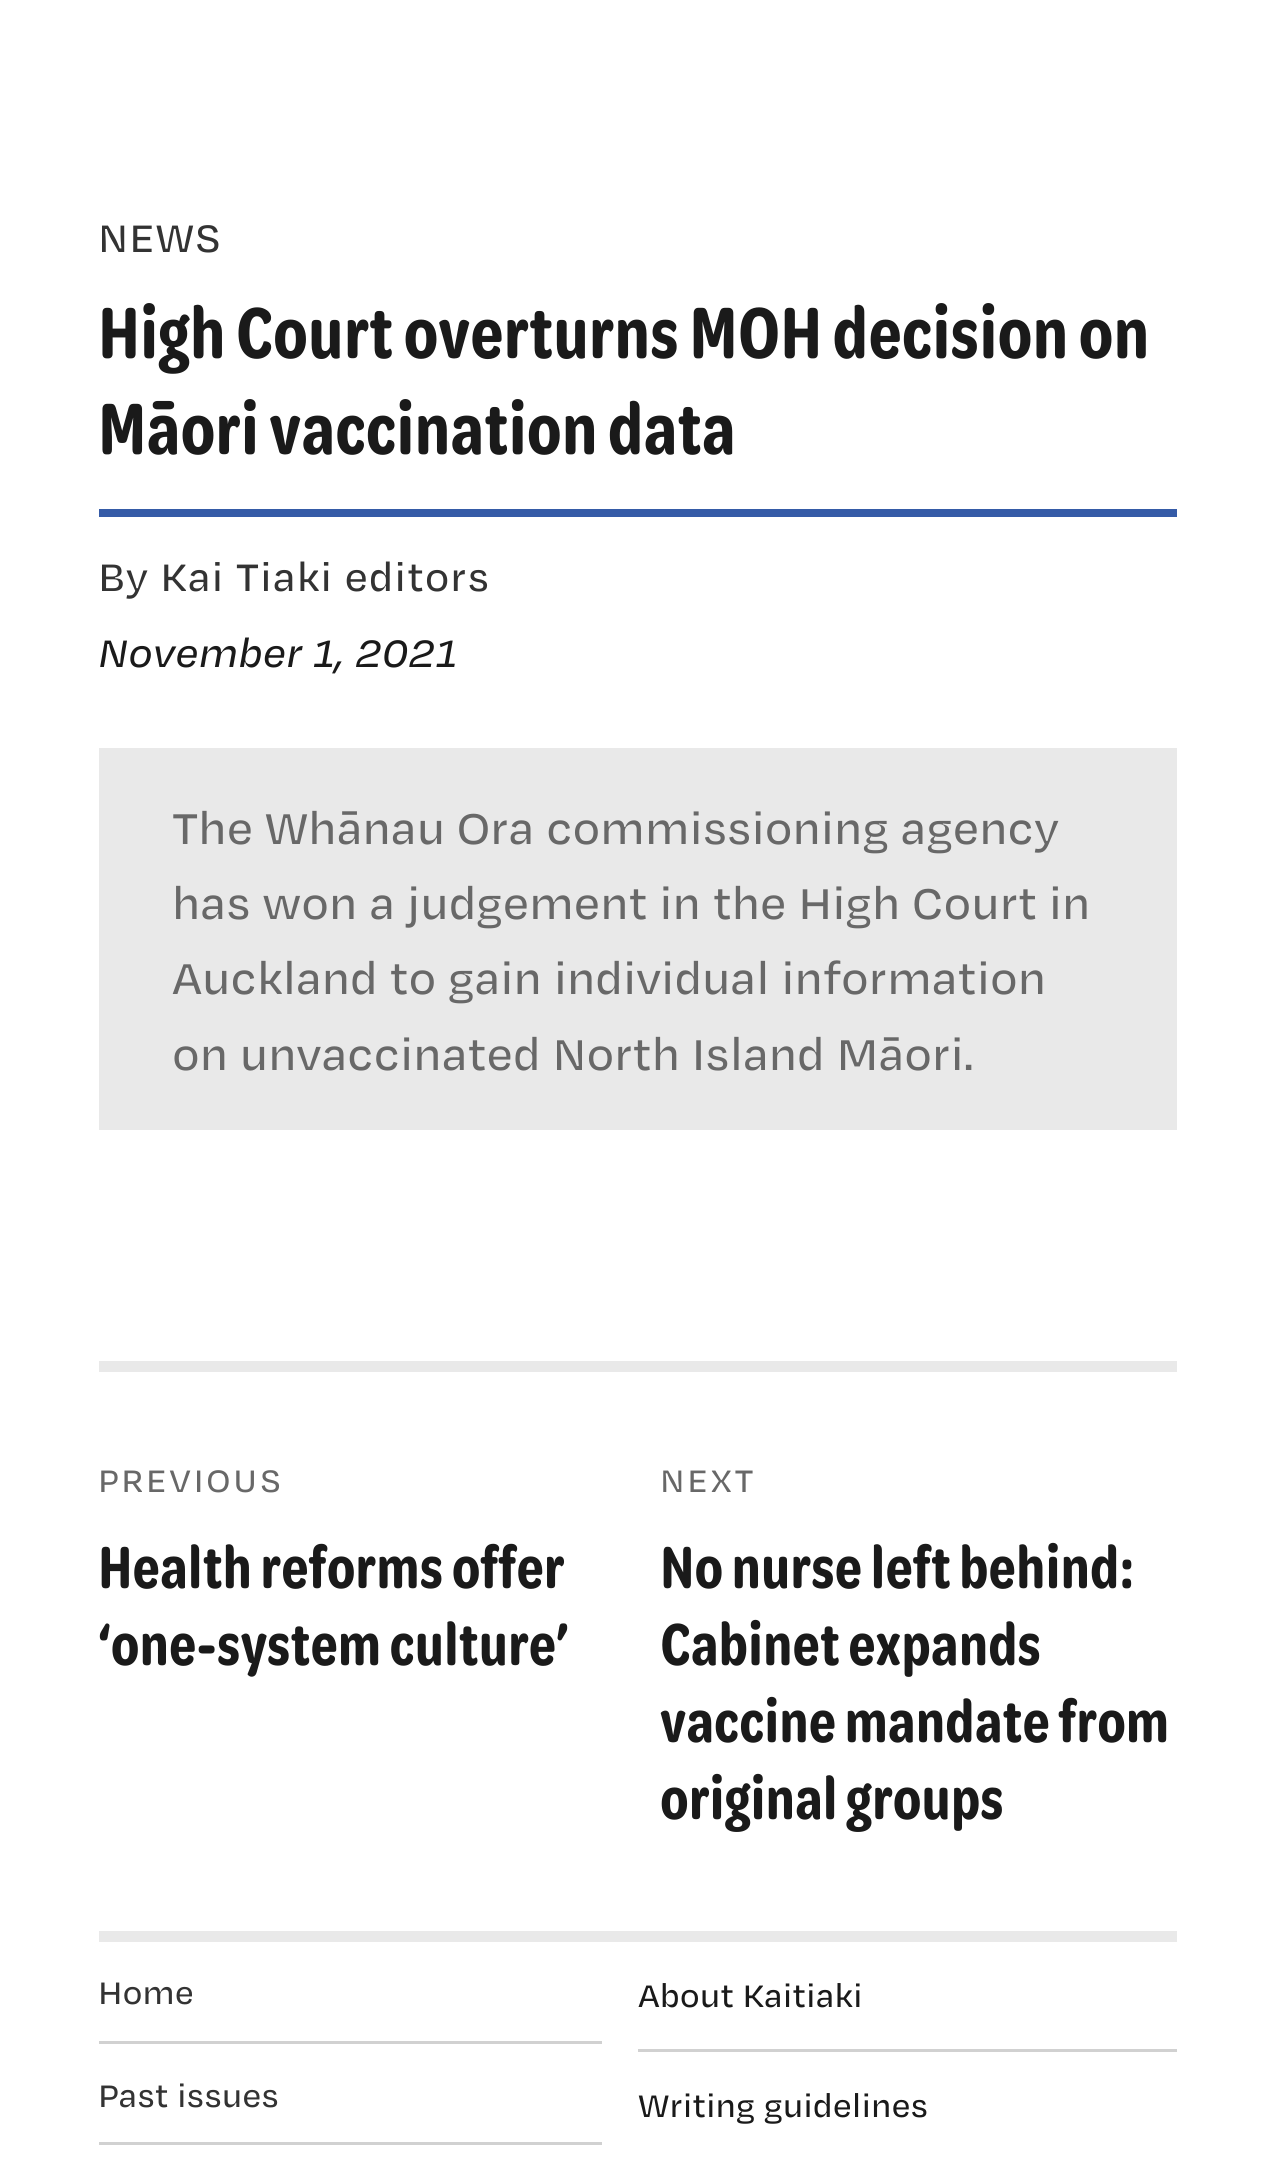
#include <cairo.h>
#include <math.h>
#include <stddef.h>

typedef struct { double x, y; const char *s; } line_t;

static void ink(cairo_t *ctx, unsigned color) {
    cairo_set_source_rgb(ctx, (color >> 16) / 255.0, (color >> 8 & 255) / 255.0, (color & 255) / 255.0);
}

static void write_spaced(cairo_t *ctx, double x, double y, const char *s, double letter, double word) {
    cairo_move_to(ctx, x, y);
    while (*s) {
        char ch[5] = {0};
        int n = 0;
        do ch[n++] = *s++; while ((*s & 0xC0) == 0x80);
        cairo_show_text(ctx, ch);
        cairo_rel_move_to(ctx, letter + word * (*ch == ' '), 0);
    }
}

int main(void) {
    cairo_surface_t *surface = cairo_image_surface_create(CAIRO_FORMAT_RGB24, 1275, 2159);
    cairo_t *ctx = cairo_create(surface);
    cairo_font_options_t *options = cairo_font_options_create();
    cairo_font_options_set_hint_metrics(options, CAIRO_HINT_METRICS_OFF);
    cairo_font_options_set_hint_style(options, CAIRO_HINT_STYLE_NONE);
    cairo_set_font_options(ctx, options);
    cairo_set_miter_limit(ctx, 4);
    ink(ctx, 0xFFFFFF);
    cairo_paint(ctx);
    cairo_select_font_face(ctx, "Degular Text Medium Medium", CAIRO_FONT_SLANT_NORMAL, CAIRO_FONT_WEIGHT_NORMAL);
    cairo_set_font_size(ctx, 44);
    ink(ctx, 0x333333);
    write_spaced(ctx, 98, 252, "NEWS", 0.9, 0);
    ink(ctx, 0x355BA7);
    cairo_rectangle(ctx, 99, 509, 1078, 8);
    cairo_fill(ctx);
    cairo_select_font_face(ctx, "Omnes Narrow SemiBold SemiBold", CAIRO_FONT_SLANT_NORMAL, CAIRO_FONT_WEIGHT_NORMAL);
    cairo_set_font_size(ctx, 77);
    ink(ctx, 0x1A1A1A);
    cairo_move_to(ctx, 98, 358);
    cairo_show_text(ctx, "High Court overturns MOH decision on");
    cairo_move_to(ctx, 98, 454);
    cairo_show_text(ctx, "Māori vaccination data");
    cairo_select_font_face(ctx, "Degular Text Medium Medium", CAIRO_FONT_SLANT_NORMAL, CAIRO_FONT_WEIGHT_NORMAL);
    cairo_set_font_size(ctx, 44);
    ink(ctx, 0x333333);
    write_spaced(ctx, 98, 591, "By Kai Tiaki editors", 0.9, 0);
    cairo_select_font_face(ctx, "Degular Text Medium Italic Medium", CAIRO_FONT_SLANT_ITALIC, CAIRO_FONT_WEIGHT_NORMAL);
    ink(ctx, 0x1A1A1A);
    cairo_move_to(ctx, 98, 667);
    cairo_show_text(ctx, "November 1, 2021");
    ink(ctx, 0xE9E9E9);
    cairo_rectangle(ctx, 99, 748, 1078, 382);
    cairo_fill(ctx);
    cairo_select_font_face(ctx, "Degular Text Medium Medium", CAIRO_FONT_SLANT_NORMAL, CAIRO_FONT_WEIGHT_NORMAL);
    cairo_set_font_size(ctx, 49.5);
    ink(ctx, 0x686868);
    {
        static const line_t items[] = {
            {172, 844, "The Whānau Ora commissioning agency"},
            {172, 919, "has won a judgement in the High Court in"},
            {172, 994, "Auckland to gain individual information"},
            {172, 1070, "on unvaccinated North Island Māori."},
        };
        for (size_t i = 0; i < sizeof items / sizeof *items; i++) {
            cairo_move_to(ctx, items[i].x, items[i].y);
            cairo_show_text(ctx, items[i].s);
        }
    }
    ink(ctx, 0xE9E9E9);
    cairo_rectangle(ctx, 99, 1361, 1078, 11);
    cairo_fill(ctx);
    cairo_set_font_size(ctx, 35.75);
    ink(ctx, 0x686868);
    write_spaced(ctx, 98, 1492, "PREVIOUS", 2.75, 0);
    cairo_select_font_face(ctx, "Omnes Narrow SemiBold SemiBold", CAIRO_FONT_SLANT_NORMAL, CAIRO_FONT_WEIGHT_NORMAL);
    cairo_set_font_size(ctx, 63.25);
    ink(ctx, 0x1A1A1A);
    cairo_move_to(ctx, 98, 1588);
    cairo_show_text(ctx, "Health reforms offer");
    cairo_move_to(ctx, 98, 1665);
    cairo_show_text(ctx, "‘one-system culture’");
    cairo_select_font_face(ctx, "Degular Text Medium Medium", CAIRO_FONT_SLANT_NORMAL, CAIRO_FONT_WEIGHT_NORMAL);
    cairo_set_font_size(ctx, 35.75);
    ink(ctx, 0x686868);
    write_spaced(ctx, 660, 1492, "NEXT", 2.75, 0);
    cairo_select_font_face(ctx, "Omnes Narrow SemiBold SemiBold", CAIRO_FONT_SLANT_NORMAL, CAIRO_FONT_WEIGHT_NORMAL);
    cairo_set_font_size(ctx, 63.25);
    ink(ctx, 0x1A1A1A);
    {
        static const line_t items[] = {
            {660, 1588, "No nurse left behind:"},
            {660, 1665, "Cabinet expands"},
            {660, 1742, "vaccine mandate from"},
            {660, 1819, "original groups"},
        };
        for (size_t i = 0; i < sizeof items / sizeof *items; i++) {
            cairo_move_to(ctx, items[i].x, items[i].y);
            cairo_show_text(ctx, items[i].s);
        }
    }
    cairo_select_font_face(ctx, "Degular Text Medium Medium", CAIRO_FONT_SLANT_NORMAL, CAIRO_FONT_WEIGHT_NORMAL);
    cairo_set_font_size(ctx, 35.75);
    ink(ctx, 0x333333);
    cairo_move_to(ctx, 98, 2004);
    cairo_show_text(ctx, "Home");
    ink(ctx, 0xD1D1D1);
    cairo_rectangle(ctx, 99, 2041, 503, 3);
    cairo_fill(ctx);
    ink(ctx, 0x333333);
    cairo_move_to(ctx, 98, 2107);
    cairo_show_text(ctx, "Past issues");
    ink(ctx, 0xD1D1D1);
    cairo_rectangle(ctx, 99, 2142, 503, 3);
    cairo_fill(ctx);
    ink(ctx, 0xE9E9E9);
    cairo_rectangle(ctx, 99, 1931, 1078, 11);
    cairo_fill(ctx);
    ink(ctx, 0x1A1A1A);
    cairo_move_to(ctx, 638, 2007);
    cairo_show_text(ctx, "About Kaitiaki");
    ink(ctx, 0xD1D1D1);
    cairo_rectangle(ctx, 638, 2049, 539, 3);
    cairo_fill(ctx);
    ink(ctx, 0x1A1A1A);
    cairo_move_to(ctx, 638, 2117);
    cairo_show_text(ctx, "Writing guidelines");
    cairo_surface_write_to_png(surface, "image.png");
    cairo_font_options_destroy(options);
    cairo_destroy(ctx);
    cairo_surface_destroy(surface);
    return 0;
}
